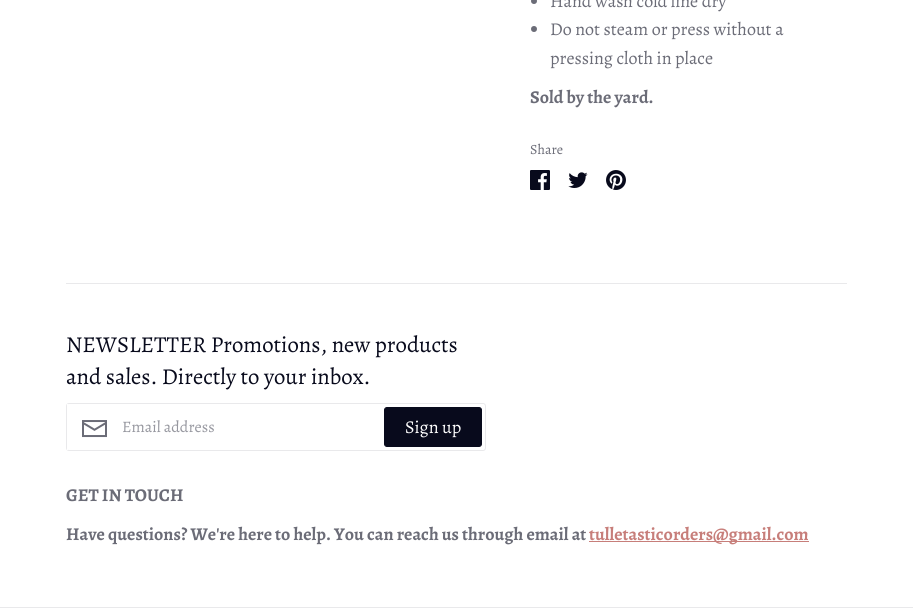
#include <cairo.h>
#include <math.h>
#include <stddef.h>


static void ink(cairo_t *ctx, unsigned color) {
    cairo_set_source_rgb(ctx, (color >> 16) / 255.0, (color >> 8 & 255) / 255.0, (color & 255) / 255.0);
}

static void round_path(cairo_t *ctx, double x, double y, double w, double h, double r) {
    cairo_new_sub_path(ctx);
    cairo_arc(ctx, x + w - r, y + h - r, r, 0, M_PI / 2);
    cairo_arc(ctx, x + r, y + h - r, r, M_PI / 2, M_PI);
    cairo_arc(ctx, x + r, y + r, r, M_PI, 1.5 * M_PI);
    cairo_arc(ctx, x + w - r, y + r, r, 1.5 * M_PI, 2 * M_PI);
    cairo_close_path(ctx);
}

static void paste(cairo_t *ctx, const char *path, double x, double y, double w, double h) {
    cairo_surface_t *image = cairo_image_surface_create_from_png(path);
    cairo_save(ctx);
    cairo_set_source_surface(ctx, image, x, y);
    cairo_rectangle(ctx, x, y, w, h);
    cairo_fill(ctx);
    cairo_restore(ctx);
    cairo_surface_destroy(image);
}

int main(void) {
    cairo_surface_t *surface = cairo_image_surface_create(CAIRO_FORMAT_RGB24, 913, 608);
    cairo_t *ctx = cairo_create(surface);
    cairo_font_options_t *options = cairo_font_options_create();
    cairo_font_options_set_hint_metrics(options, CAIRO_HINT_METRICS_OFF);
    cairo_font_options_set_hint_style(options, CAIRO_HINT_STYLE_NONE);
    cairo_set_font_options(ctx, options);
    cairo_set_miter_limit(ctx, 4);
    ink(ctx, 0xFFFFFF);
    cairo_paint(ctx);
    ink(ctx, 0x6B6C77);
    cairo_arc(ctx, 534, 1, 3, 0, 2 * M_PI);
    cairo_fill(ctx);
    cairo_select_font_face(ctx, "Alegreya", CAIRO_FONT_SLANT_NORMAL, CAIRO_FONT_WEIGHT_NORMAL);
    cairo_set_font_size(ctx, 18);
    cairo_move_to(ctx, 550, 7);
    cairo_show_text(ctx, "Hand wash cold line dry");
    cairo_new_path(ctx);
    cairo_arc(ctx, 534, 29, 3, 0, 2 * M_PI);
    cairo_fill(ctx);
    cairo_move_to(ctx, 550, 35);
    cairo_show_text(ctx, "Do not steam or press without a");
    cairo_move_to(ctx, 550, 64);
    cairo_show_text(ctx, "pressing cloth in place");
    cairo_select_font_face(ctx, "Alegreya", CAIRO_FONT_SLANT_NORMAL, CAIRO_FONT_WEIGHT_BOLD);
    cairo_move_to(ctx, 530, 103);
    cairo_show_text(ctx, "Sold by the yard.");
    cairo_select_font_face(ctx, "Alegreya", CAIRO_FONT_SLANT_NORMAL, CAIRO_FONT_WEIGHT_NORMAL);
    cairo_set_font_size(ctx, 14);
    cairo_move_to(ctx, 530, 154);
    cairo_show_text(ctx, "Share");
    paste(ctx, "media/1.png", 530, 170, 20, 20);
    paste(ctx, "media/2.png", 568, 172, 20, 16);
    paste(ctx, "media/3.png", 606, 170, 20, 20);
    ink(ctx, 0xE9E9EB);
    cairo_rectangle(ctx, 66, 283, 781, 1);
    cairo_fill(ctx);
    cairo_set_font_size(ctx, 22.75);
    ink(ctx, 0x080A1C);
    cairo_move_to(ctx, 66, 352);
    cairo_show_text(ctx, "NEWSLETTER Promotions, new products");
    cairo_move_to(ctx, 66, 384);
    cairo_show_text(ctx, "and sales. Directly to your inbox.");
    round_path(ctx, 66.5, 403.5, 419, 47, 2.5);
    ink(ctx, 0xE9E9EB);
    cairo_set_line_width(ctx, 1);
    cairo_stroke(ctx);
    paste(ctx, "media/4.png", 82, 420, 25, 18);
    ink(ctx, 0xFFFFFF);
    cairo_rectangle(ctx, 67, 404, 1, 46);
    cairo_fill(ctx);
    cairo_set_font_size(ctx, 16);
    ink(ctx, 0x9798A0);
    cairo_move_to(ctx, 122, 432);
    cairo_show_text(ctx, "Email address");
    ink(ctx, 0x080A1C);
    round_path(ctx, 384.5, 407.5, 97, 39, 2.5);
    cairo_fill_preserve(ctx);
    cairo_stroke(ctx);
    cairo_set_font_size(ctx, 18);
    ink(ctx, 0xFFFFFF);
    cairo_move_to(ctx, 405, 433);
    cairo_show_text(ctx, "Sign up");
    cairo_select_font_face(ctx, "Alegreya", CAIRO_FONT_SLANT_NORMAL, CAIRO_FONT_WEIGHT_BOLD);
    ink(ctx, 0x6B6C77);
    cairo_move_to(ctx, 66, 501);
    cairo_show_text(ctx, "GET IN TOUCH");
    cairo_move_to(ctx, 66, 540);
    cairo_show_text(ctx, "Have questions? We're here to help. You can reach us through email at");
    ink(ctx, 0xC77E7A);
    cairo_rectangle(ctx, 589, 541, 220, 1);
    cairo_fill(ctx);
    cairo_move_to(ctx, 589, 540);
    cairo_show_text(ctx, "tulletasticorders@gmail.com");
    ink(ctx, 0xE9E9EB);
    cairo_rectangle(ctx, 0, 607, 913, 1);
    cairo_fill(ctx);
    cairo_surface_write_to_png(surface, "image.png");
    cairo_font_options_destroy(options);
    cairo_destroy(ctx);
    cairo_surface_destroy(surface);
    return 0;
}
